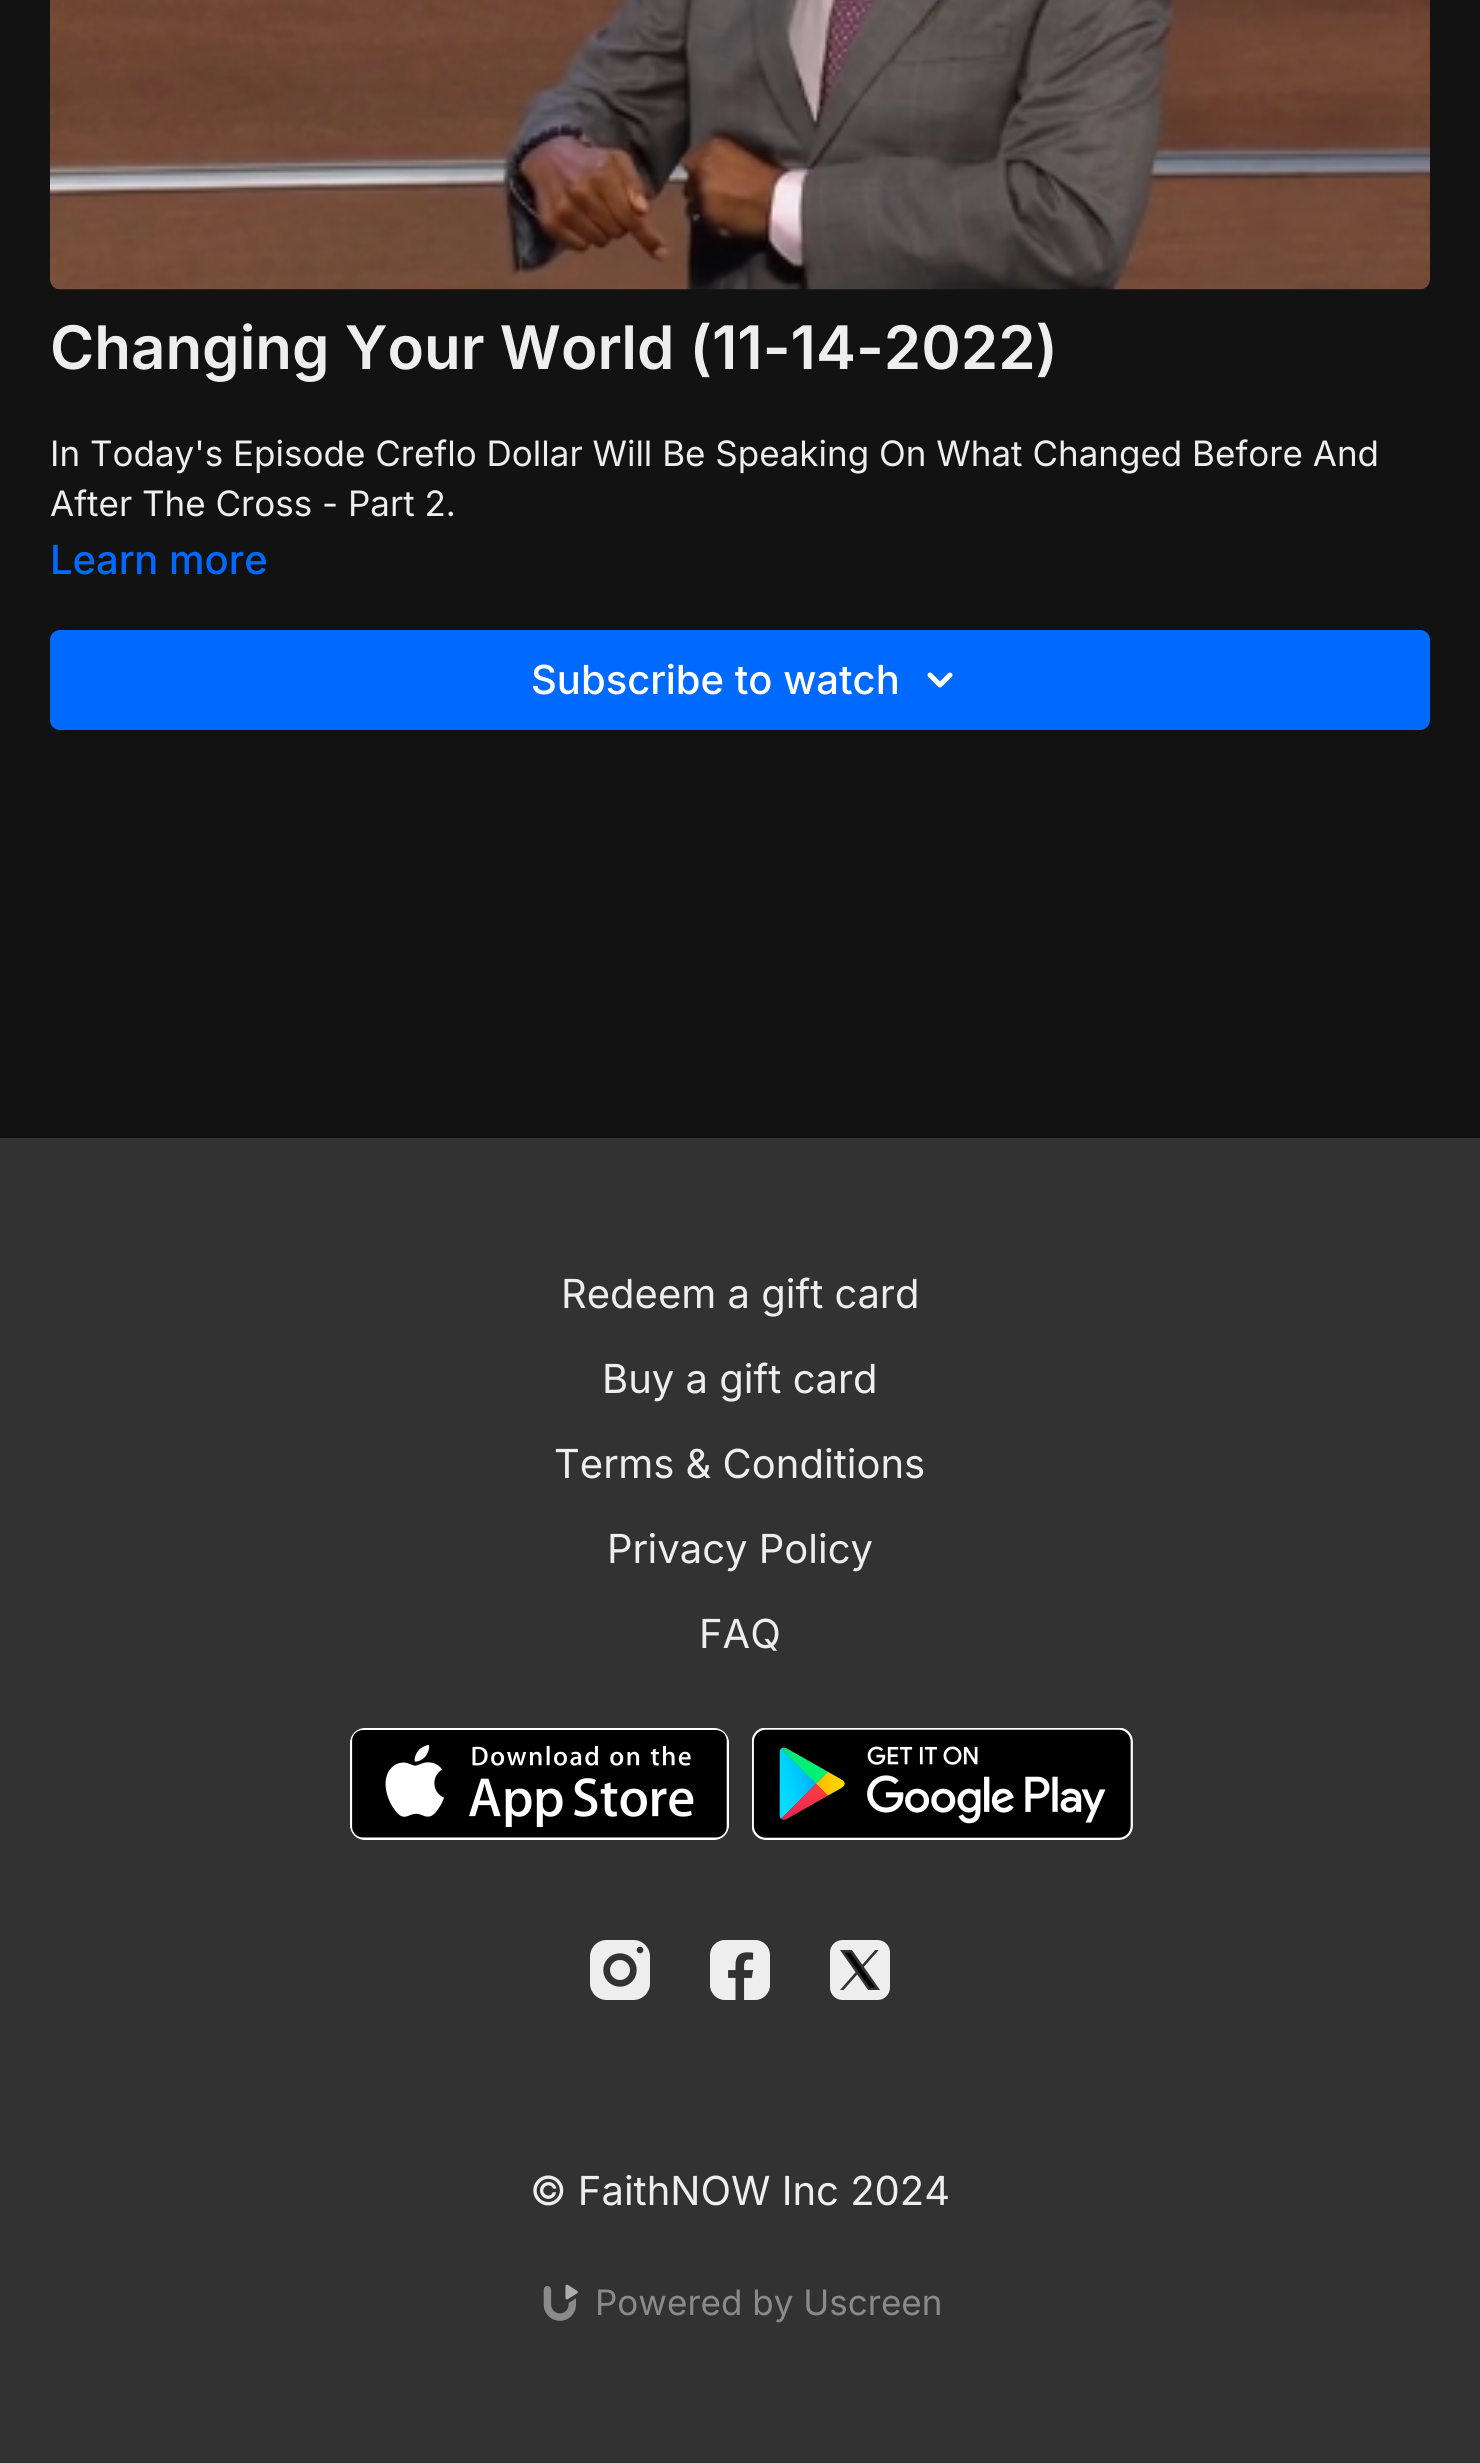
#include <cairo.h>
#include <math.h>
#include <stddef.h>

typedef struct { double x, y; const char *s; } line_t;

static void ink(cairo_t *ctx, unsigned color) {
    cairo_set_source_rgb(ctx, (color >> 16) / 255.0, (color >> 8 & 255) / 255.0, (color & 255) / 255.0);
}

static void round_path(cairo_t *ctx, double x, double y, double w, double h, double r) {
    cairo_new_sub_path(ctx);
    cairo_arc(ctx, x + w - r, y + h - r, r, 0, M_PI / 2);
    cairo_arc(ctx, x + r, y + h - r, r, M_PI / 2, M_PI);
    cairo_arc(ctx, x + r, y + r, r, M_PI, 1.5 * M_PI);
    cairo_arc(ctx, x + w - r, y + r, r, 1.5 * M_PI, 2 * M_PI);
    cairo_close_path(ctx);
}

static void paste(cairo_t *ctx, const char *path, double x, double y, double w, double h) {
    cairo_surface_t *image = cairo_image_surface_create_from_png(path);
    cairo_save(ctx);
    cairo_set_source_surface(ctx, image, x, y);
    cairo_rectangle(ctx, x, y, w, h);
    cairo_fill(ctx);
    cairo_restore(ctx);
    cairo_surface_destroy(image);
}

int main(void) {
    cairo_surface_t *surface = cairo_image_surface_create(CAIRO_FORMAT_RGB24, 1480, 2463);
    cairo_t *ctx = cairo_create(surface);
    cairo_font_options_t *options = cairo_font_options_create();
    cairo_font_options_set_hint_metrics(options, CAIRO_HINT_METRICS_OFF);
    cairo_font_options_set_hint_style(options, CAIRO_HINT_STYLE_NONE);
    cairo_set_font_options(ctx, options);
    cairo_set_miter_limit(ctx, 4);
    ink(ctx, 0x121212);
    cairo_paint(ctx);
    paste(ctx, "media/1.png", 50, 0, 1380, 290);
    cairo_select_font_face(ctx, "Inter SemiBold", CAIRO_FONT_SLANT_NORMAL, CAIRO_FONT_WEIGHT_NORMAL);
    cairo_set_font_size(ctx, 60);
    ink(ctx, 0xEEEEEE);
    cairo_move_to(ctx, 50, 369);
    cairo_show_text(ctx, "Changing Your World (11-14-2022)");
    cairo_select_font_face(ctx, "Inter", CAIRO_FONT_SLANT_NORMAL, CAIRO_FONT_WEIGHT_NORMAL);
    cairo_set_font_size(ctx, 35);
    cairo_move_to(ctx, 50, 466);
    cairo_show_text(ctx, "In Today's Episode Creflo Dollar Will Be Speaking On What Changed Before And");
    cairo_move_to(ctx, 50, 516);
    cairo_show_text(ctx, "After The Cross - Part 2.");
    cairo_select_font_face(ctx, "Inter Medium", CAIRO_FONT_SLANT_NORMAL, CAIRO_FONT_WEIGHT_NORMAL);
    cairo_set_font_size(ctx, 40);
    ink(ctx, 0x006AFF);
    cairo_move_to(ctx, 50, 574);
    cairo_show_text(ctx, "Learn more");
    round_path(ctx, 50, 630, 1380, 100, 10);
    cairo_fill(ctx);
    ink(ctx, 0xFFFFFF);
    cairo_move_to(ctx, 531, 694);
    cairo_show_text(ctx, "Subscribe to watch");
    paste(ctx, "media/2.png", 927, 672, 26, 16);
    ink(ctx, 0x323232);
    cairo_rectangle(ctx, 0, 1138, 1480, 1325);
    cairo_fill(ctx);
    cairo_select_font_face(ctx, "Inter", CAIRO_FONT_SLANT_NORMAL, CAIRO_FONT_WEIGHT_NORMAL);
    ink(ctx, 0xEEEEEE);
    {
        static const line_t items[] = {
            {561, 1308, "Redeem a gift card"},
            {602, 1393, "Buy a gift card"},
            {554, 1478, "Terms & Conditions"},
            {607, 1563, "Privacy Policy"},
            {699, 1648, "FAQ"},
        };
        for (size_t i = 0; i < sizeof items / sizeof *items; i++) {
            cairo_move_to(ctx, items[i].x, items[i].y);
            cairo_show_text(ctx, items[i].s);
        }
    }
    paste(ctx, "media/3.png", 350, 1728, 379, 112);
    paste(ctx, "media/4.png", 752, 1728, 381, 112);
    paste(ctx, "media/5.png", 590, 1940, 60, 60);
    paste(ctx, "media/6.png", 710, 1940, 60, 60);
    paste(ctx, "media/7.png", 830, 1940, 60, 60);
    cairo_move_to(ctx, 530, 2205);
    cairo_show_text(ctx, "© FaithNOW Inc 2024");
    paste(ctx, "media/8.png", 543, 2284, 35, 37);
    cairo_set_font_size(ctx, 35);
    ink(ctx, 0x8A8A8A);
    cairo_move_to(ctx, 595, 2315);
    cairo_show_text(ctx, "Powered by Uscreen");
    cairo_surface_write_to_png(surface, "image.png");
    cairo_font_options_destroy(options);
    cairo_destroy(ctx);
    cairo_surface_destroy(surface);
    return 0;
}
